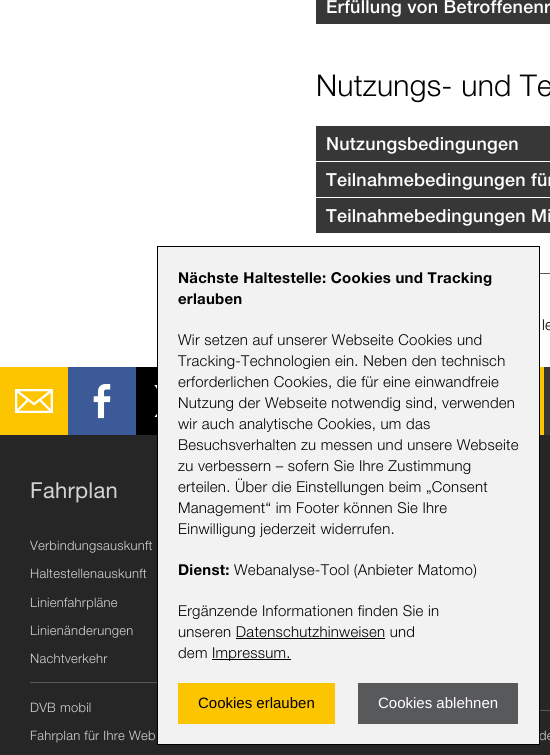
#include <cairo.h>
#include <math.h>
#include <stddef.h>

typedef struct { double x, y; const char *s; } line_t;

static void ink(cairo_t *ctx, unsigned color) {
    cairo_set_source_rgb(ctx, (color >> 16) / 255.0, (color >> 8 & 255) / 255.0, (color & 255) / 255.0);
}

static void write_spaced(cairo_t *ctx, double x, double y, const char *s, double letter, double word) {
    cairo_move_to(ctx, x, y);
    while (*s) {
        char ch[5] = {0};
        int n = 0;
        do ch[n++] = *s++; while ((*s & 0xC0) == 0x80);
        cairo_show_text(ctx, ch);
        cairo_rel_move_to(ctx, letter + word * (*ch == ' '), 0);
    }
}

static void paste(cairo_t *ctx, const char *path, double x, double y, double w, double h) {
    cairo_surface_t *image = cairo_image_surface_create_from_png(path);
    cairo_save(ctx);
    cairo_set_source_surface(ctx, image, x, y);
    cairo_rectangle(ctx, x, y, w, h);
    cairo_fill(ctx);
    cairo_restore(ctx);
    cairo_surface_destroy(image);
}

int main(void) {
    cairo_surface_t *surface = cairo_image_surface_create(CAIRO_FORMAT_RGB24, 550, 755);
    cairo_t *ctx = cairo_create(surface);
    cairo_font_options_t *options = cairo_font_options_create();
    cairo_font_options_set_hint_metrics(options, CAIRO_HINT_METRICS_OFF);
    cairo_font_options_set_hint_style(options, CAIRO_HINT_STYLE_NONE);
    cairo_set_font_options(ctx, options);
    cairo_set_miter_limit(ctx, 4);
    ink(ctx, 0x262626);
    cairo_paint(ctx);
    ink(ctx, 0xFFFFFF);
    cairo_rectangle(ctx, 0, 0, 550, 367);
    cairo_fill(ctx);
    ink(ctx, 0x373737);
    cairo_rectangle(ctx, 316, 0, 234, 24);
    cairo_fill(ctx);
    cairo_select_font_face(ctx, "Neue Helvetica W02 Medium", CAIRO_FONT_SLANT_NORMAL, CAIRO_FONT_WEIGHT_NORMAL);
    cairo_set_font_size(ctx, 18);
    ink(ctx, 0xFFFFFF);
    write_spaced(ctx, 326, 13, "Erfüllung von Betroffenenr", 0.25, 0);
    cairo_select_font_face(ctx, "Neue Helvetica W02 Light", CAIRO_FONT_SLANT_NORMAL, CAIRO_FONT_WEIGHT_NORMAL);
    cairo_set_font_size(ctx, 30);
    ink(ctx, 0x000000);
    write_spaced(ctx, 316, 96, "Nutzungs- und Te", 0.25, 0);
    ink(ctx, 0x373737);
    cairo_rectangle(ctx, 316, 126, 234, 35);
    cairo_fill(ctx);
    cairo_select_font_face(ctx, "Neue Helvetica W02 Medium", CAIRO_FONT_SLANT_NORMAL, CAIRO_FONT_WEIGHT_NORMAL);
    cairo_set_font_size(ctx, 18);
    ink(ctx, 0xFFFFFF);
    write_spaced(ctx, 326, 150, "Nutzungsbedingungen", 0.25, 0);
    ink(ctx, 0x373737);
    cairo_rectangle(ctx, 316, 162, 234, 35);
    cairo_fill(ctx);
    ink(ctx, 0xFFFFFF);
    write_spaced(ctx, 326, 186, "Teilnahmebedingungen für", 0.25, 0);
    ink(ctx, 0x373737);
    cairo_rectangle(ctx, 316, 198, 234, 35);
    cairo_fill(ctx);
    ink(ctx, 0xFFFFFF);
    write_spaced(ctx, 326, 222, "Teilnahmebedingungen Mi", 0.25, 0);
    ink(ctx, 0x58595B);
    cairo_rectangle(ctx, 540, 273, 10, 1);
    cairo_fill(ctx);
    cairo_select_font_face(ctx, "Neue Helvetica W02 Light", CAIRO_FONT_SLANT_NORMAL, CAIRO_FONT_WEIGHT_NORMAL);
    cairo_set_font_size(ctx, 15);
    ink(ctx, 0x000000);
    write_spaced(ctx, 542, 330, "le", 0.25, 0);
    cairo_set_font_size(ctx, 13);
    ink(ctx, 0xD1D3D4);
    write_spaced(ctx, 539, 740, "de", 0.25, 0);
    ink(ctx, 0xF2F2F2);
    cairo_rectangle(ctx, 157.5, 246.5, 382, 498);
    cairo_fill_preserve(ctx);
    ink(ctx, 0x000000);
    cairo_set_line_width(ctx, 1);
    cairo_stroke(ctx);
    cairo_select_font_face(ctx, "Neue Helvetica W02", CAIRO_FONT_SLANT_NORMAL, CAIRO_FONT_WEIGHT_BOLD);
    cairo_set_font_size(ctx, 15);
    write_spaced(ctx, 178, 283, "Nächste Haltestelle: Cookies und Tracking", 0.25, 0);
    write_spaced(ctx, 178, 304, "erlauben", 0.25, 0);
    cairo_select_font_face(ctx, "Neue Helvetica W02 Light", CAIRO_FONT_SLANT_NORMAL, CAIRO_FONT_WEIGHT_NORMAL);
    {
        static const line_t items[] = {
            {178, 345, "Wir setzen auf unserer Webseite Cookies und"},
            {178, 366, "Tracking-Technologien ein. Neben den technisch"},
            {178, 387, "erforderlichen Cookies, die für eine einwandfreie"},
            {178, 408, "Nutzung der Webseite notwendig sind, verwenden"},
            {178, 429, "wir auch analytische Cookies, um das"},
            {178, 450, "Besuchsverhalten zu messen und unsere Webseite"},
            {178, 471, "zu verbessern – sofern Sie Ihre Zustimmung"},
            {178, 492, "erteilen. Über die Einstellungen beim „Consent"},
            {178, 513, "Management“ im Footer können Sie Ihre"},
            {178, 534, "Einwilligung jederzeit widerrufen."},
        };
        for (size_t i = 0; i < sizeof items / sizeof *items; i++) {
            write_spaced(ctx, items[i].x, items[i].y, items[i].s, 0.25, 0);
        }
    }
    cairo_select_font_face(ctx, "Neue Helvetica W02", CAIRO_FONT_SLANT_NORMAL, CAIRO_FONT_WEIGHT_BOLD);
    write_spaced(ctx, 178, 575, "Dienst:", 0.25, 0);
    cairo_select_font_face(ctx, "Neue Helvetica W02 Light", CAIRO_FONT_SLANT_NORMAL, CAIRO_FONT_WEIGHT_NORMAL);
    {
        static const line_t items[] = {
            {234, 575, "Webanalyse-Tool (Anbieter Matomo)"},
            {178, 616, "Ergänzende Informationen finden Sie in"},
            {178, 637, "unseren Datenschutzhinweisen und"},
        };
        for (size_t i = 0; i < sizeof items / sizeof *items; i++) {
            write_spaced(ctx, items[i].x, items[i].y, items[i].s, 0.25, 0);
        }
    }
    cairo_rectangle(ctx, 236, 638, 149, 1);
    cairo_fill(ctx);
    write_spaced(ctx, 178, 658, "dem", 0.25, 0);
    cairo_rectangle(ctx, 212, 659, 79, 1);
    cairo_fill(ctx);
    write_spaced(ctx, 212, 658, "Impressum.", 0.25, 0);
    ink(ctx, 0xFDC400);
    cairo_rectangle(ctx, 178, 683, 157, 41);
    cairo_fill(ctx);
    cairo_select_font_face(ctx, "Liberation Sans", CAIRO_FONT_SLANT_NORMAL, CAIRO_FONT_WEIGHT_NORMAL);
    ink(ctx, 0x000000);
    cairo_move_to(ctx, 198, 708);
    cairo_show_text(ctx, "Cookies erlauben");
    ink(ctx, 0x58595B);
    cairo_rectangle(ctx, 358, 683, 160, 41);
    cairo_fill(ctx);
    ink(ctx, 0xFFFFFF);
    cairo_move_to(ctx, 378, 708);
    cairo_show_text(ctx, "Cookies ablehnen");
    ink(ctx, 0x373737);
    cairo_rectangle(ctx, 544, 367, 6, 68);
    cairo_fill(ctx);
    ink(ctx, 0xFDC400);
    cairo_rectangle(ctx, 0, 367, 68, 68);
    cairo_fill(ctx);
    paste(ctx, "media/1.png", 15, 389, 38, 24);
    ink(ctx, 0x3C5A98);
    cairo_rectangle(ctx, 68, 367, 68, 68);
    cairo_fill(ctx);
    paste(ctx, "media/2.png", 93, 383, 18, 36);
    ink(ctx, 0x000000);
    cairo_rectangle(ctx, 136, 367, 21, 68);
    cairo_fill(ctx);
    paste(ctx, "media/3.png", 154, 385, 3, 32);
    ink(ctx, 0xFDC400);
    cairo_rectangle(ctx, 540, 367, 4, 68);
    cairo_fill(ctx);
    cairo_select_font_face(ctx, "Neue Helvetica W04", CAIRO_FONT_SLANT_NORMAL, CAIRO_FONT_WEIGHT_NORMAL);
    cairo_set_font_size(ctx, 22);
    ink(ctx, 0xD1D3D4);
    write_spaced(ctx, 30, 498, "Fahrplan", 0.25, 0);
    cairo_select_font_face(ctx, "Neue Helvetica W02 Light", CAIRO_FONT_SLANT_NORMAL, CAIRO_FONT_WEIGHT_NORMAL);
    cairo_set_font_size(ctx, 13);
    {
        static const line_t items[] = {
            {30, 550, "Verbindungsauskunft"},
            {30, 578, "Haltestellenauskunft"},
            {30, 607, "Linienfahrpläne"},
            {30, 635, "Linienänderungen"},
            {30, 663, "Nachtverkehr"},
        };
        for (size_t i = 0; i < sizeof items / sizeof *items; i++) {
            write_spaced(ctx, items[i].x, items[i].y, items[i].s, 0.25, 0);
        }
    }
    ink(ctx, 0x58595B);
    cairo_rectangle(ctx, 30, 682, 127, 1);
    cairo_fill(ctx);
    ink(ctx, 0xD1D3D4);
    write_spaced(ctx, 30, 712, "DVB mobil", 0.25, 0);
    write_spaced(ctx, 30, 740, "Fahrplan für Ihre Web", 0.25, 0);
    ink(ctx, 0x58595B);
    cairo_rectangle(ctx, 540, 710, 10, 1);
    cairo_fill(ctx);
    cairo_surface_write_to_png(surface, "image.png");
    cairo_font_options_destroy(options);
    cairo_destroy(ctx);
    cairo_surface_destroy(surface);
    return 0;
}
